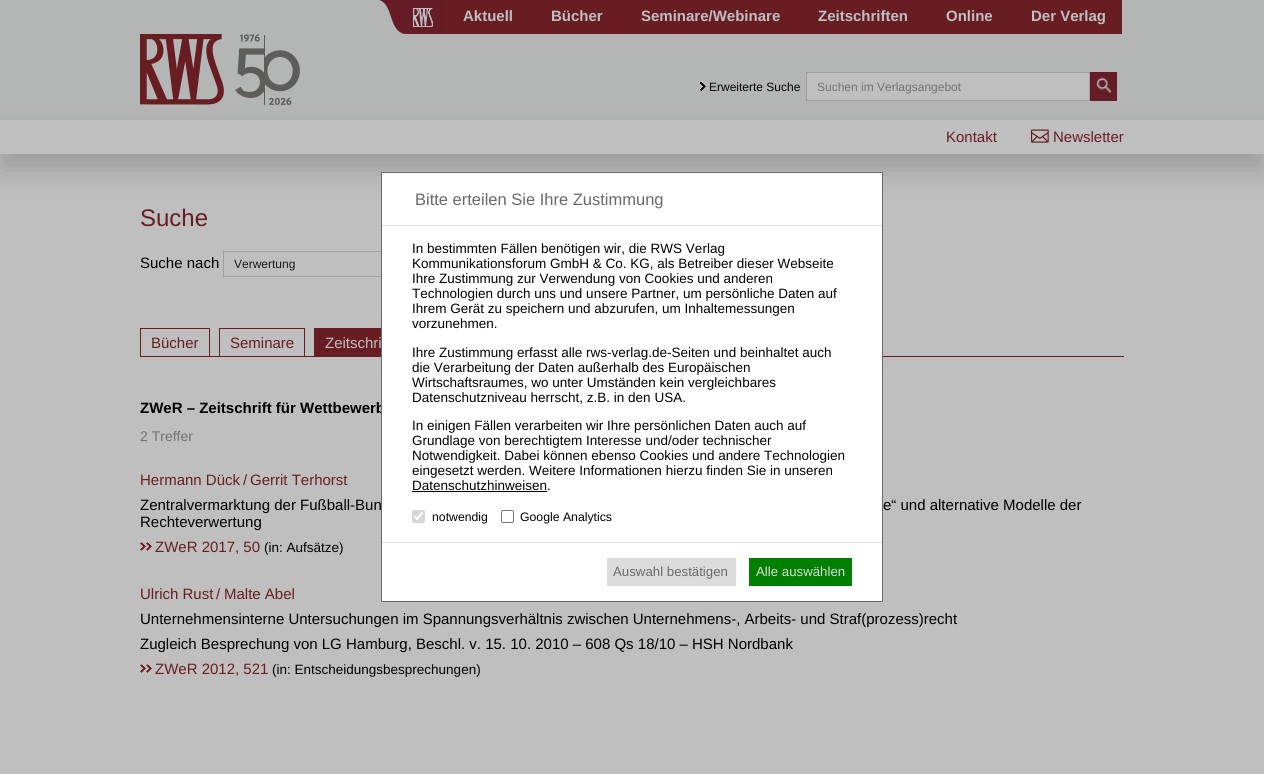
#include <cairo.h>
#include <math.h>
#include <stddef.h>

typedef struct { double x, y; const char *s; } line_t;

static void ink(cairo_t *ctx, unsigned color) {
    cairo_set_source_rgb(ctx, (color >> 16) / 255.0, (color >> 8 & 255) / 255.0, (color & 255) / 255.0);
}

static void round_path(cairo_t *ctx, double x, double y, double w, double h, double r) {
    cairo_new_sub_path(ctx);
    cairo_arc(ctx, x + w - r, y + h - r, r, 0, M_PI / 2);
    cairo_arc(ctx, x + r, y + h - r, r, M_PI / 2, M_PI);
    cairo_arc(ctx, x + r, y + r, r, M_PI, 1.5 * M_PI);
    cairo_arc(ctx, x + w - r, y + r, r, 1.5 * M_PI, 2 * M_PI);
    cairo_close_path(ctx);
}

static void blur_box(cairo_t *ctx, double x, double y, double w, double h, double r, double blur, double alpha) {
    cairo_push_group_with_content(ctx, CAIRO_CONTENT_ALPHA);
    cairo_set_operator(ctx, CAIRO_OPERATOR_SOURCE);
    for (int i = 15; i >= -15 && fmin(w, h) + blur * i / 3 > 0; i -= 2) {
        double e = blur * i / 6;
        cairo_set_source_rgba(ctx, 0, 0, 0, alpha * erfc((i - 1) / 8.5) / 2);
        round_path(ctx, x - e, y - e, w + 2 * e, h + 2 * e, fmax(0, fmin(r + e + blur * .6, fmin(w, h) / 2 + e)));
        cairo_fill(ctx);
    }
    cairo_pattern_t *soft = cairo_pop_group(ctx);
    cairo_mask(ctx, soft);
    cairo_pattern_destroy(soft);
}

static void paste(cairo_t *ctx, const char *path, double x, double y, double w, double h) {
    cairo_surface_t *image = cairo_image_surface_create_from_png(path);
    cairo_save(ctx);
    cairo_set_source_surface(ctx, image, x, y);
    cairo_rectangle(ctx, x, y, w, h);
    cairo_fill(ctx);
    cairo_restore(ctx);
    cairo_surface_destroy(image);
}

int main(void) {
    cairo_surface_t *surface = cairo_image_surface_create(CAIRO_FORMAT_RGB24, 1264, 774);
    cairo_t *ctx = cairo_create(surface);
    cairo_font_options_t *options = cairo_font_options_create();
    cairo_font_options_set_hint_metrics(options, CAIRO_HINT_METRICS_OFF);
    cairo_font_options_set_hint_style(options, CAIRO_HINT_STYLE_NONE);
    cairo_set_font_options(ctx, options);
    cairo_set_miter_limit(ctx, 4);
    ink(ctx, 0xBFBFBF);
    cairo_paint(ctx);
    ink(ctx, 0xB4B6B5);
    cairo_rectangle(ctx, 0, 0, 1264, 120);
    cairo_fill(ctx);
    paste(ctx, "media/1.png", 378, 0, 67, 34);
    paste(ctx, "media/2.png", 413, 8, 20, 19);
    ink(ctx, 0x681D23);
    cairo_rectangle(ctx, 445, 0, 677, 34);
    cairo_fill(ctx);
    cairo_select_font_face(ctx, "Liberation Sans", CAIRO_FONT_SLANT_NORMAL, CAIRO_FONT_WEIGHT_BOLD);
    cairo_set_font_size(ctx, 15);
    ink(ctx, 0xBFBFBF);
    {
        static const line_t items[] = {
            {463, 21, "Aktuell"},
            {551, 21, "Bücher"},
            {641, 21, "Seminare/Webinare"},
            {818, 21, "Zeitschriften"},
            {946, 21, "Online"},
            {1031, 21, "Der Verlag"},
        };
        for (size_t i = 0; i < sizeof items / sizeof *items; i++) {
            cairo_move_to(ctx, items[i].x, items[i].y);
            cairo_show_text(ctx, items[i].s);
        }
    }
    paste(ctx, "media/3.png", 140, 34, 160, 71);
    paste(ctx, "media/4.png", 699, 81, 7, 10);
    cairo_select_font_face(ctx, "Liberation Sans", CAIRO_FONT_SLANT_NORMAL, CAIRO_FONT_WEIGHT_NORMAL);
    cairo_set_font_size(ctx, 12);
    ink(ctx, 0x000000);
    cairo_move_to(ctx, 709, 91);
    cairo_show_text(ctx, "Erweiterte Suche");
    ink(ctx, 0xBFBFBF);
    cairo_rectangle(ctx, 806.5, 72.5, 283, 28);
    cairo_fill_preserve(ctx);
    ink(ctx, 0x9F9FA1);
    cairo_set_line_width(ctx, 1);
    cairo_stroke(ctx);
    ink(ctx, 0x737373);
    cairo_move_to(ctx, 817, 91);
    cairo_show_text(ctx, "Suchen im Verlagsangebot");
    paste(ctx, "media/5.png", 1090, 72, 27, 29);
    cairo_save(ctx);
    cairo_set_fill_rule(ctx, CAIRO_FILL_RULE_EVEN_ODD);
    cairo_new_path(ctx);
    cairo_move_to(ctx, 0, 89);
    cairo_line_to(ctx, 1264, 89);
    cairo_line_to(ctx, 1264, 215);
    cairo_line_to(ctx, 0, 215);
    cairo_close_path(ctx);
    cairo_move_to(ctx, 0, 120);
    cairo_line_to(ctx, 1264, 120);
    cairo_line_to(ctx, 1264, 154);
    cairo_line_to(ctx, 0, 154);
    cairo_close_path(ctx);
    cairo_clip(ctx);
    ink(ctx, 0x9B9B9B);
    blur_box(ctx, 0, 135, 1264, 34, 0, 15, 1);
    cairo_restore(ctx);
    cairo_set_font_size(ctx, 15);
    ink(ctx, 0x681D23);
    cairo_move_to(ctx, 946, 142);
    cairo_show_text(ctx, "Kontakt");
    paste(ctx, "media/6.png", 1031, 129, 18, 14);
    cairo_move_to(ctx, 1053, 142);
    cairo_show_text(ctx, "Newsletter");
    cairo_rectangle(ctx, 223.5, 251.5, 271, 25);
    ink(ctx, 0x9F9FA1);
    cairo_stroke(ctx);
    ink(ctx, 0x681D23);
    cairo_rectangle(ctx, 210, 356, 914, 1);
    cairo_fill(ctx);
    cairo_select_font_face(ctx, "Liberation Sans", CAIRO_FONT_SLANT_NORMAL, CAIRO_FONT_WEIGHT_BOLD);
    ink(ctx, 0x000000);
    cairo_move_to(ctx, 140, 413);
    cairo_show_text(ctx, "ZWeR – Zeitschrift für Wettbewerb");
    ink(ctx, 0xFFFFFF);
    cairo_rectangle(ctx, 381.5, 172.5, 501, 429);
    cairo_fill_preserve(ctx);
    ink(ctx, 0x696969);
    cairo_stroke(ctx);
    ink(ctx, 0xDCDCDC);
    cairo_rectangle(ctx, 382, 225, 500, 1);
    cairo_fill(ctx);
    cairo_select_font_face(ctx, "Liberation Sans", CAIRO_FONT_SLANT_NORMAL, CAIRO_FONT_WEIGHT_NORMAL);
    cairo_set_font_size(ctx, 16.5);
    ink(ctx, 0x696969);
    cairo_move_to(ctx, 415, 205);
    cairo_show_text(ctx, "Bitte erteilen Sie Ihre Zustimmung");
    cairo_set_font_size(ctx, 13.5);
    ink(ctx, 0x000000);
    {
        static const line_t items[] = {
            {412, 253, "In bestimmten Fällen benötigen wir, die RWS Verlag"},
            {412, 268, "Kommunikationsforum GmbH & Co. KG, als Betreiber dieser Webseite"},
            {412, 283, "Ihre Zustimmung zur Verwendung von Cookies und anderen"},
            {412, 298, "Technologien durch uns und unsere Partner, um persönliche Daten auf"},
            {412, 313, "Ihrem Gerät zu speichern und abzurufen, um Inhaltemessungen"},
            {412, 328, "vorzunehmen."},
            {412, 357, "Ihre Zustimmung erfasst alle rws-verlag.de-Seiten und beinhaltet auch"},
            {412, 372, "die Verarbeitung der Daten außerhalb des Europäischen"},
            {412, 387, "Wirtschaftsraumes, wo unter Umständen kein vergleichbares"},
            {412, 402, "Datenschutzniveau herrscht, z.B. in den USA."},
            {412, 430, "In einigen Fällen verarbeiten wir Ihre persönlichen Daten auch auf"},
            {412, 445, "Grundlage von berechtigtem Interesse und/oder technischer"},
            {412, 460, "Notwendigkeit. Dabei können ebenso Cookies und andere Technologien"},
            {412, 475, "eingesetzt werden. Weitere Informationen hierzu finden Sie in unseren"},
            {412, 490, "Datenschutzhinweisen."},
        };
        for (size_t i = 0; i < sizeof items / sizeof *items; i++) {
            cairo_move_to(ctx, items[i].x, items[i].y);
            cairo_show_text(ctx, items[i].s);
        }
    }
    cairo_rectangle(ctx, 412, 491, 135, 1);
    cairo_fill(ctx);
    ink(ctx, 0xD6D6D6);
    round_path(ctx, 412, 510, 13, 13, 2);
    cairo_fill(ctx);
    cairo_new_path(ctx);
    cairo_move_to(ctx, 414.5, 516.5);
    cairo_line_to(ctx, 417, 519);
    cairo_line_to(ctx, 422.5, 512.5);
    ink(ctx, 0xFFFFFF);
    cairo_set_line_width(ctx, 2.1);
    cairo_stroke(ctx);
    cairo_set_font_size(ctx, 12.25);
    ink(ctx, 0x000000);
    cairo_move_to(ctx, 432, 521);
    cairo_show_text(ctx, "notwendig");
    round_path(ctx, 501.5, 510.5, 12, 12, 1.5);
    ink(ctx, 0x767676);
    cairo_set_line_width(ctx, 1);
    cairo_stroke(ctx);
    ink(ctx, 0x000000);
    cairo_move_to(ctx, 520, 521);
    cairo_show_text(ctx, "Google Analytics");
    ink(ctx, 0xDCDCDC);
    cairo_rectangle(ctx, 382, 542, 500, 1);
    cairo_fill(ctx);
    cairo_rectangle(ctx, 607, 558, 129, 28);
    cairo_fill(ctx);
    cairo_set_font_size(ctx, 13.25);
    ink(ctx, 0x696969);
    cairo_move_to(ctx, 613, 576);
    cairo_show_text(ctx, "Auswahl bestätigen");
    ink(ctx, 0x008000);
    cairo_rectangle(ctx, 749, 558, 103, 28);
    cairo_fill(ctx);
    ink(ctx, 0xDCDCDC);
    cairo_move_to(ctx, 756, 576);
    cairo_show_text(ctx, "Alle auswählen");
    cairo_set_font_size(ctx, 24);
    ink(ctx, 0x681D23);
    cairo_move_to(ctx, 140, 226);
    cairo_show_text(ctx, "Suche");
    cairo_set_font_size(ctx, 15);
    ink(ctx, 0x000000);
    cairo_move_to(ctx, 140, 268);
    cairo_show_text(ctx, "Suche nach");
    cairo_set_font_size(ctx, 12);
    ink(ctx, 0x1A1A1A);
    cairo_move_to(ctx, 234, 268);
    cairo_show_text(ctx, "Verwertung");
    cairo_rectangle(ctx, 140.5, 328.5, 69, 28);
    ink(ctx, 0x681D23);
    cairo_stroke(ctx);
    cairo_set_font_size(ctx, 15);
    cairo_move_to(ctx, 151, 348);
    cairo_show_text(ctx, "Bücher");
    cairo_rectangle(ctx, 219.5, 328.5, 85, 28);
    cairo_stroke(ctx);
    cairo_move_to(ctx, 230, 348);
    cairo_show_text(ctx, "Seminare");
    cairo_rectangle(ctx, 314, 328, 67, 28);
    cairo_fill(ctx);
    ink(ctx, 0xBFBFBF);
    cairo_move_to(ctx, 325, 348);
    cairo_show_text(ctx, "Zeitschri");
    cairo_set_font_size(ctx, 14);
    ink(ctx, 0x737373);
    cairo_move_to(ctx, 140, 441);
    cairo_show_text(ctx, "2 Treffer");
    cairo_set_font_size(ctx, 15);
    ink(ctx, 0x681D23);
    {
        static const line_t items[] = {
            {140, 485, "Hermann Dück"},
            {243, 485, "/"},
            {250, 485, "Gerrit Terhorst"},
        };
        for (size_t i = 0; i < sizeof items / sizeof *items; i++) {
            cairo_move_to(ctx, items[i].x, items[i].y);
            cairo_show_text(ctx, items[i].s);
        }
    }
    ink(ctx, 0x000000);
    {
        static const line_t items[] = {
            {140, 510, "Zentralvermarktung der Fußball-Bun"},
            {883, 510, "e“ und alternative Modelle der"},
            {140, 527, "Rechteverwertung"},
        };
        for (size_t i = 0; i < sizeof items / sizeof *items; i++) {
            cairo_move_to(ctx, items[i].x, items[i].y);
            cairo_show_text(ctx, items[i].s);
        }
    }
    paste(ctx, "media/7.png", 140, 542, 12, 9);
    ink(ctx, 0x681D23);
    cairo_move_to(ctx, 155, 552);
    cairo_show_text(ctx, "ZWeR 2017, 50");
    cairo_set_font_size(ctx, 13.5);
    ink(ctx, 0x000000);
    cairo_move_to(ctx, 264, 552);
    cairo_show_text(ctx, "(in: Aufsätze)");
    cairo_set_font_size(ctx, 15);
    ink(ctx, 0x681D23);
    {
        static const line_t items[] = {
            {140, 599, "Ulrich Rust"},
            {216, 599, "/"},
            {224, 599, "Malte Abel"},
        };
        for (size_t i = 0; i < sizeof items / sizeof *items; i++) {
            cairo_move_to(ctx, items[i].x, items[i].y);
            cairo_show_text(ctx, items[i].s);
        }
    }
    ink(ctx, 0x000000);
    cairo_move_to(ctx, 140, 624);
    cairo_show_text(ctx, "Unternehmensinterne Untersuchungen im Spannungsverhältnis zwischen Unternehmens-, Arbeits- und Straf(prozess)recht");
    cairo_move_to(ctx, 140, 649);
    cairo_show_text(ctx, "Zugleich Besprechung von LG Hamburg, Beschl. v. 15. 10. 2010 – 608 Qs 18/10 – HSH Nordbank");
    paste(ctx, "media/7.png", 140, 664, 12, 9);
    ink(ctx, 0x681D23);
    cairo_move_to(ctx, 155, 674);
    cairo_show_text(ctx, "ZWeR 2012, 521");
    cairo_set_font_size(ctx, 13.5);
    ink(ctx, 0x000000);
    cairo_move_to(ctx, 272, 674);
    cairo_show_text(ctx, "(in: Entscheidungsbesprechungen)");
    cairo_surface_write_to_png(surface, "image.png");
    cairo_font_options_destroy(options);
    cairo_destroy(ctx);
    cairo_surface_destroy(surface);
    return 0;
}
